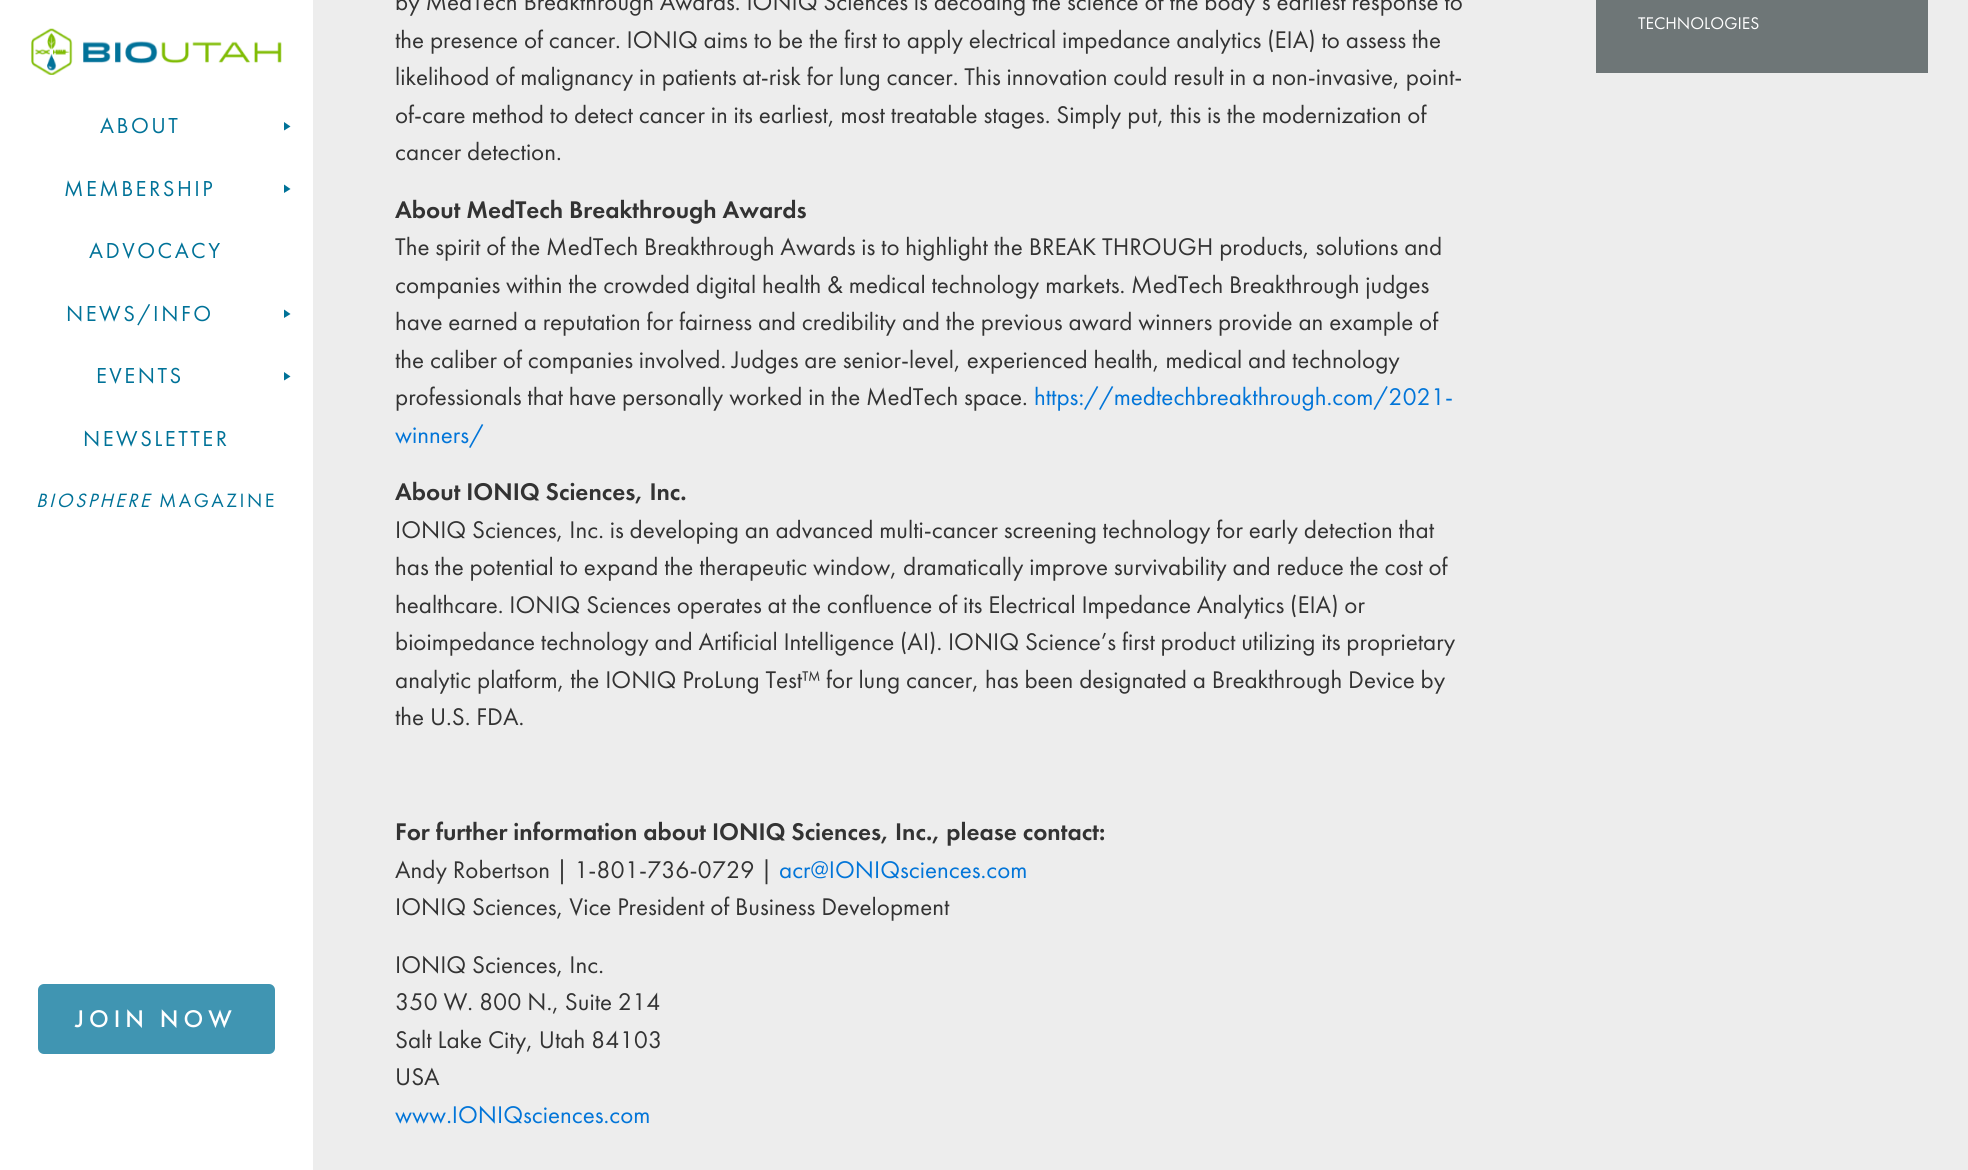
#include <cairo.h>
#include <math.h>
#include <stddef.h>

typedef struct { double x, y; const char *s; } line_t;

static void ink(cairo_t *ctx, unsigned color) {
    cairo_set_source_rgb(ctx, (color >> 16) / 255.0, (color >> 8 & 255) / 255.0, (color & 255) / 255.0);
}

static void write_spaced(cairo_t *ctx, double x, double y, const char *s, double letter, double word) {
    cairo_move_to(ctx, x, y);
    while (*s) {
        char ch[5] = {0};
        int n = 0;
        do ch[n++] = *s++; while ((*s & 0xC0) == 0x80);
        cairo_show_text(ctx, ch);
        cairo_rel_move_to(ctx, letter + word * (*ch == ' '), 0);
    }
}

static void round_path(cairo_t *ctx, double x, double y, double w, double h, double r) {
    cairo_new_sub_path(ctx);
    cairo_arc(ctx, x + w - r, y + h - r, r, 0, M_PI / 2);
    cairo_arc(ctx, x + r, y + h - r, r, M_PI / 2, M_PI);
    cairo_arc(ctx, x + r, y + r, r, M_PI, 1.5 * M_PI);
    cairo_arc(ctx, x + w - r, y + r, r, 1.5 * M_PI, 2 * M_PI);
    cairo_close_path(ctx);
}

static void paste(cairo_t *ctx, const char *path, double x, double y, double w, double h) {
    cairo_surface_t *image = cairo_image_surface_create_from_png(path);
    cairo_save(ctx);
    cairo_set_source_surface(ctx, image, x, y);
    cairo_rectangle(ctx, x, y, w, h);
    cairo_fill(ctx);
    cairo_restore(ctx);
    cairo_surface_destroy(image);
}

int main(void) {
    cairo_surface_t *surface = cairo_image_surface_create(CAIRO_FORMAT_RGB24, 1968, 1170);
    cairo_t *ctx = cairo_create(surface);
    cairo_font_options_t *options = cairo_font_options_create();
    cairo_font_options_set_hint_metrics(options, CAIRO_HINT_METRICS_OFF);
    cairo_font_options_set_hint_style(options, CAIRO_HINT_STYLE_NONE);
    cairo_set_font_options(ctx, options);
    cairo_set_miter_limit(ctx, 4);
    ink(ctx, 0xFFFFFF);
    cairo_paint(ctx);
    paste(ctx, "media/1.png", 31, 28, 251, 47);
    cairo_select_font_face(ctx, "Futura PT", CAIRO_FONT_SLANT_NORMAL, CAIRO_FONT_WEIGHT_NORMAL);
    cairo_set_font_size(ctx, 22.5);
    ink(ctx, 0x007298);
    write_spaced(ctx, 100, 133, "ABOUT", 2.5, 0);
    cairo_new_path(ctx);
    cairo_move_to(ctx, 284, 122);
    cairo_line_to(ctx, 290.5, 126.5);
    cairo_line_to(ctx, 284, 130.5);
    cairo_close_path(ctx);
    cairo_fill(ctx);
    write_spaced(ctx, 64, 196, "MEMBERSHIP", 2.5, 0);
    cairo_new_path(ctx);
    cairo_move_to(ctx, 284, 184.5);
    cairo_line_to(ctx, 290.5, 189);
    cairo_line_to(ctx, 284, 193);
    cairo_close_path(ctx);
    cairo_fill(ctx);
    write_spaced(ctx, 89, 258, "ADVOCACY", 2.5, 0);
    write_spaced(ctx, 66, 321, "NEWS/INFO", 2.5, 0);
    cairo_new_path(ctx);
    cairo_move_to(ctx, 284, 309.5);
    cairo_line_to(ctx, 290.5, 314);
    cairo_line_to(ctx, 284, 318);
    cairo_close_path(ctx);
    cairo_fill(ctx);
    write_spaced(ctx, 96, 383, "EVENTS", 2.5, 0);
    cairo_new_path(ctx);
    cairo_move_to(ctx, 284, 372);
    cairo_line_to(ctx, 290.5, 376.5);
    cairo_line_to(ctx, 284, 380.5);
    cairo_close_path(ctx);
    cairo_fill(ctx);
    write_spaced(ctx, 83, 446, "NEWSLETTER", 2.5, 0);
    cairo_select_font_face(ctx, "Futura PT", CAIRO_FONT_SLANT_ITALIC, CAIRO_FONT_WEIGHT_NORMAL);
    cairo_set_font_size(ctx, 20);
    write_spaced(ctx, 36, 507, "BIOSPHERE", 2.5, 0);
    cairo_select_font_face(ctx, "Futura PT", CAIRO_FONT_SLANT_NORMAL, CAIRO_FONT_WEIGHT_NORMAL);
    write_spaced(ctx, 159, 507, "MAGAZINE", 2.5, 0);
    ink(ctx, 0x4095B2);
    round_path(ctx, 38, 984, 237, 70, 6);
    cairo_fill(ctx);
    cairo_select_font_face(ctx, "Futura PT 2 Medium", CAIRO_FONT_SLANT_NORMAL, CAIRO_FONT_WEIGHT_NORMAL);
    cairo_set_font_size(ctx, 25);
    ink(ctx, 0xFFFFFF);
    write_spaced(ctx, 75, 1027, "JOIN NOW", 5, 0);
    ink(ctx, 0xEDEDED);
    cairo_rectangle(ctx, 313, 0, 1655, 1170);
    cairo_fill(ctx);
    cairo_select_font_face(ctx, "Futura PT", CAIRO_FONT_SLANT_NORMAL, CAIRO_FONT_WEIGHT_NORMAL);
    ink(ctx, 0x333333);
    {
        static const line_t items[] = {
            {395, 10, "by MedTech Breakthrough Awards. IONIQ Sciences is decoding the science of the body’s earliest response to"},
            {395, 48, "the presence of cancer. IONIQ aims to be the first to apply electrical impedance analytics (EIA) to assess the"},
            {395, 85, "likelihood of malignancy in patients at-risk for lung cancer. This innovation could result in a non-invasive, point-"},
            {395, 123, "of-care method to detect cancer in its earliest, most treatable stages. Simply put, this is the modernization of"},
            {395, 160, "cancer detection."},
        };
        for (size_t i = 0; i < sizeof items / sizeof *items; i++) {
            cairo_move_to(ctx, items[i].x, items[i].y);
            cairo_show_text(ctx, items[i].s);
        }
    }
    cairo_select_font_face(ctx, "Futura PT Medium", CAIRO_FONT_SLANT_NORMAL, CAIRO_FONT_WEIGHT_NORMAL);
    cairo_move_to(ctx, 395, 218);
    cairo_show_text(ctx, "About MedTech Breakthrough Awards");
    cairo_select_font_face(ctx, "Futura PT", CAIRO_FONT_SLANT_NORMAL, CAIRO_FONT_WEIGHT_NORMAL);
    {
        static const line_t items[] = {
            {395, 255, "The spirit of the MedTech Breakthrough Awards is to highlight the BREAK THROUGH products, solutions and"},
            {395, 293, "companies within the crowded digital health & medical technology markets. MedTech Breakthrough judges"},
            {395, 330, "have earned a reputation for fairness and credibility and the previous award winners provide an example of"},
            {395, 368, "the caliber of companies involved. Judges are senior-level, experienced health, medical and technology"},
            {395, 405, "professionals that have personally worked in the MedTech space."},
        };
        for (size_t i = 0; i < sizeof items / sizeof *items; i++) {
            cairo_move_to(ctx, items[i].x, items[i].y);
            cairo_show_text(ctx, items[i].s);
        }
    }
    ink(ctx, 0x0275D8);
    cairo_move_to(ctx, 1034, 405);
    cairo_show_text(ctx, "https://medtechbreakthrough.com/2021-");
    cairo_move_to(ctx, 395, 443);
    cairo_show_text(ctx, "winners/");
    cairo_select_font_face(ctx, "Futura PT Medium", CAIRO_FONT_SLANT_NORMAL, CAIRO_FONT_WEIGHT_NORMAL);
    ink(ctx, 0x333333);
    cairo_move_to(ctx, 395, 500);
    cairo_show_text(ctx, "About IONIQ Sciences, Inc.");
    cairo_select_font_face(ctx, "Futura PT", CAIRO_FONT_SLANT_NORMAL, CAIRO_FONT_WEIGHT_NORMAL);
    {
        static const line_t items[] = {
            {395, 538, "IONIQ Sciences, Inc. is developing an advanced multi-cancer screening technology for early detection that"},
            {395, 575, "has the potential to expand the therapeutic window, dramatically improve survivability and reduce the cost of"},
            {395, 613, "healthcare. IONIQ Sciences operates at the confluence of its Electrical Impedance Analytics (EIA) or"},
            {395, 650, "bioimpedance technology and Artificial Intelligence (AI). IONIQ Science’s first product utilizing its proprietary"},
            {395, 688, "analytic platform, the IONIQ ProLung Test™ for lung cancer, has been designated a Breakthrough Device by"},
            {395, 725, "the U.S. FDA."},
        };
        for (size_t i = 0; i < sizeof items / sizeof *items; i++) {
            cairo_move_to(ctx, items[i].x, items[i].y);
            cairo_show_text(ctx, items[i].s);
        }
    }
    cairo_select_font_face(ctx, "Futura PT Medium", CAIRO_FONT_SLANT_NORMAL, CAIRO_FONT_WEIGHT_NORMAL);
    cairo_move_to(ctx, 395, 840);
    cairo_show_text(ctx, "For further information about IONIQ Sciences, Inc., please contact:");
    cairo_select_font_face(ctx, "Futura PT", CAIRO_FONT_SLANT_NORMAL, CAIRO_FONT_WEIGHT_NORMAL);
    cairo_move_to(ctx, 395, 878);
    cairo_show_text(ctx, "Andy Robertson | 1-801-736-0729 |");
    ink(ctx, 0x0275D8);
    cairo_move_to(ctx, 779, 878);
    cairo_show_text(ctx, "acr@IONIQsciences.com");
    ink(ctx, 0x333333);
    {
        static const line_t items[] = {
            {395, 915, "IONIQ Sciences, Vice President of Business Development"},
            {395, 973, "IONIQ Sciences, Inc."},
            {395, 1010, "350 W. 800 N., Suite 214"},
            {395, 1048, "Salt Lake City, Utah 84103"},
            {395, 1085, "USA"},
        };
        for (size_t i = 0; i < sizeof items / sizeof *items; i++) {
            cairo_move_to(ctx, items[i].x, items[i].y);
            cairo_show_text(ctx, items[i].s);
        }
    }
    ink(ctx, 0x0275D8);
    cairo_move_to(ctx, 395, 1123);
    cairo_show_text(ctx, "www.IONIQsciences.com");
    ink(ctx, 0x6E7677);
    cairo_rectangle(ctx, 1596, 0, 332, 73);
    cairo_fill(ctx);
    cairo_set_font_size(ctx, 17.5);
    ink(ctx, 0xFFFFFF);
    cairo_move_to(ctx, 1638, 29);
    cairo_show_text(ctx, "TECHNOLOGIES");
    cairo_surface_write_to_png(surface, "image.png");
    cairo_font_options_destroy(options);
    cairo_destroy(ctx);
    cairo_surface_destroy(surface);
    return 0;
}
